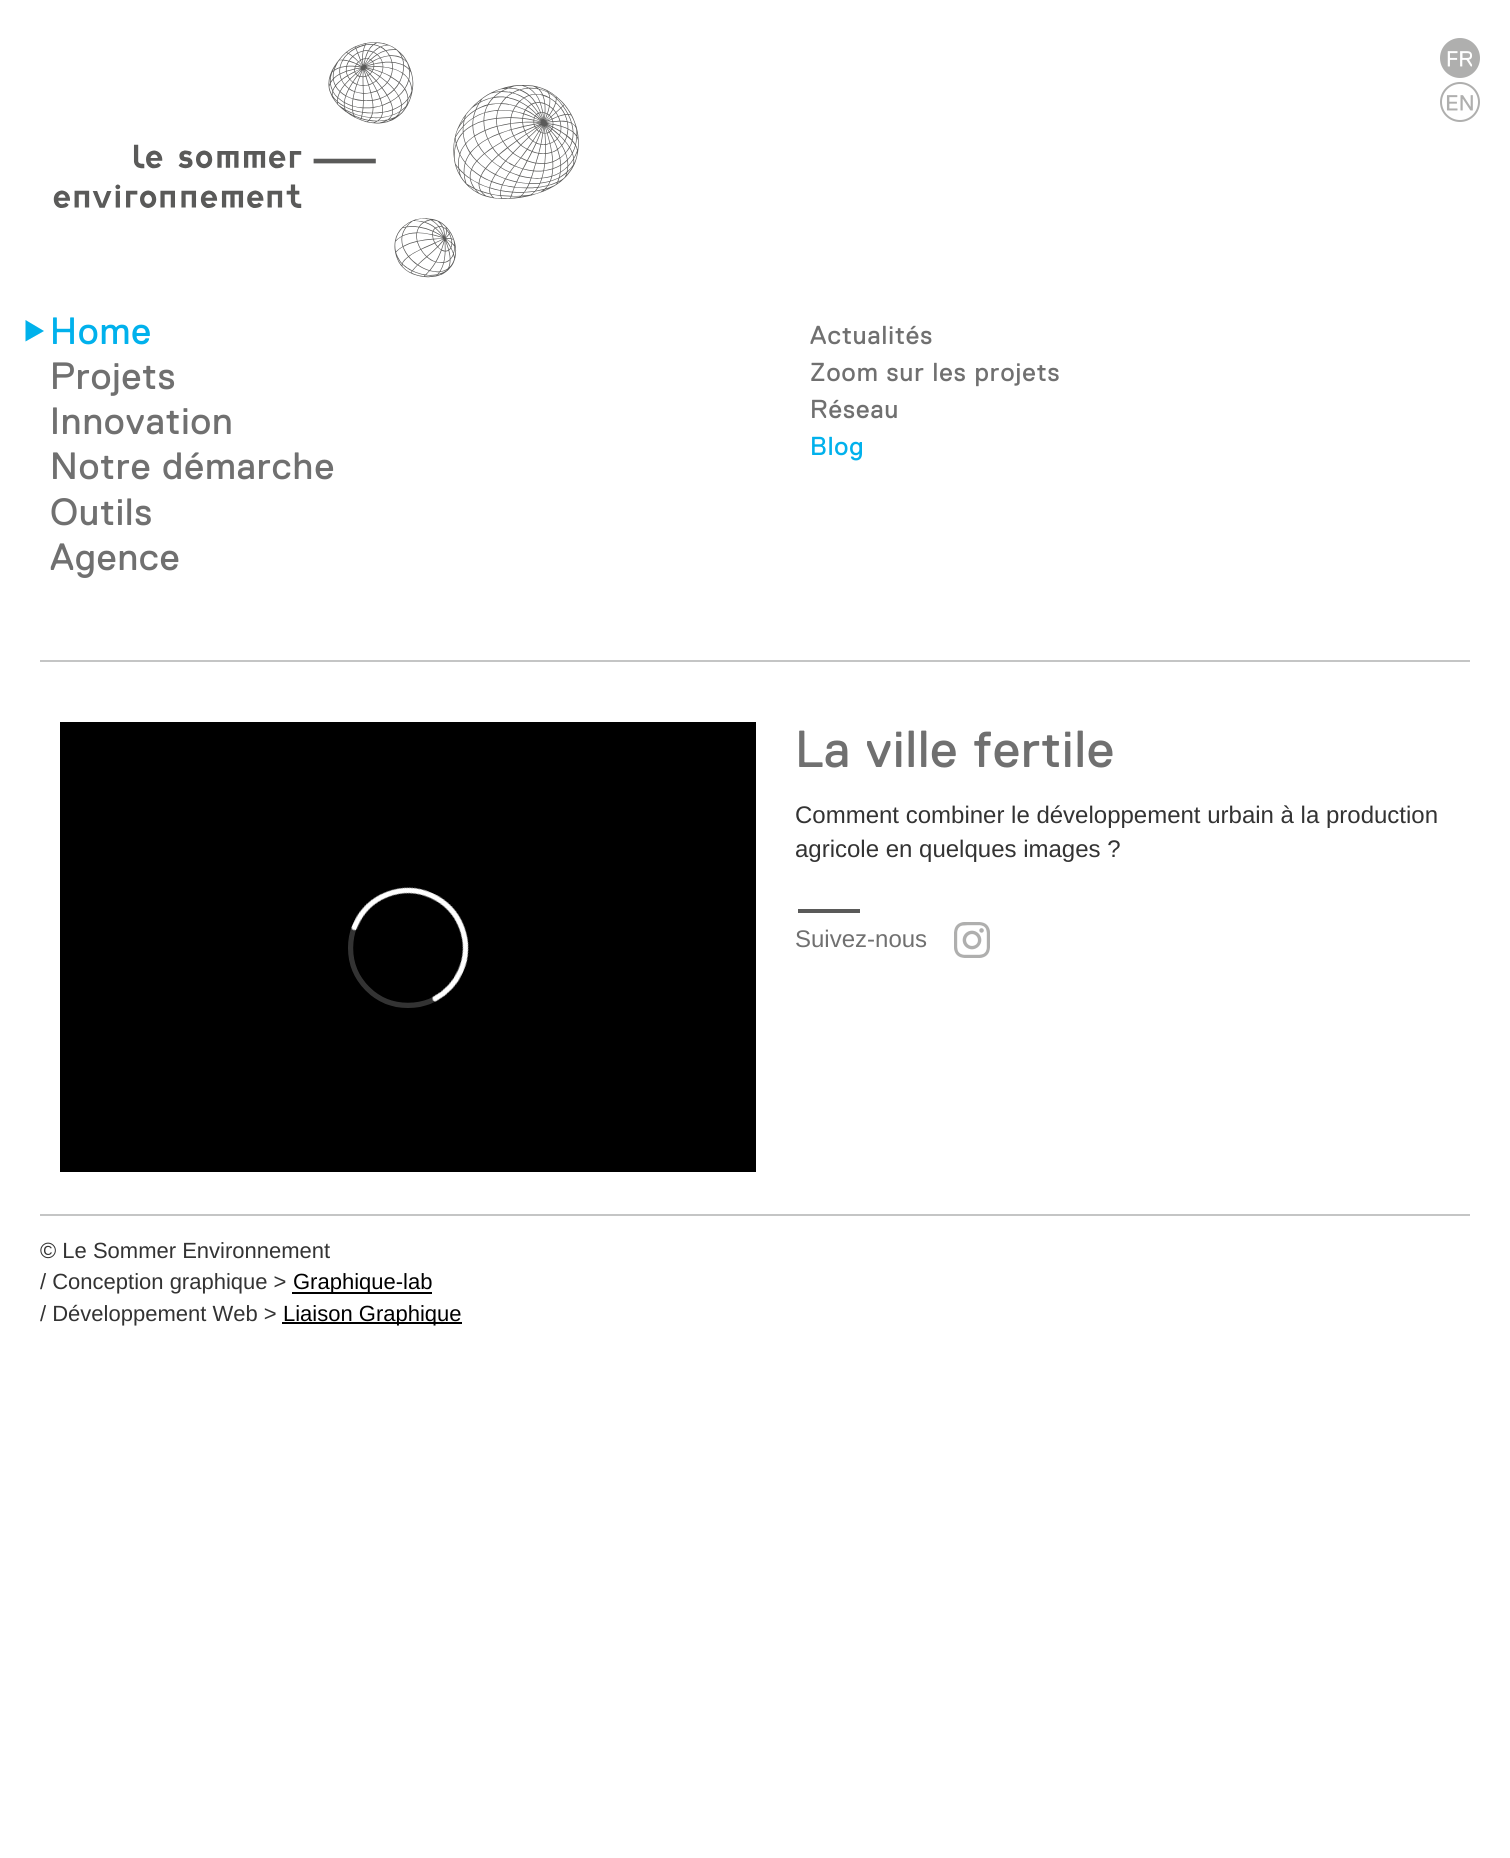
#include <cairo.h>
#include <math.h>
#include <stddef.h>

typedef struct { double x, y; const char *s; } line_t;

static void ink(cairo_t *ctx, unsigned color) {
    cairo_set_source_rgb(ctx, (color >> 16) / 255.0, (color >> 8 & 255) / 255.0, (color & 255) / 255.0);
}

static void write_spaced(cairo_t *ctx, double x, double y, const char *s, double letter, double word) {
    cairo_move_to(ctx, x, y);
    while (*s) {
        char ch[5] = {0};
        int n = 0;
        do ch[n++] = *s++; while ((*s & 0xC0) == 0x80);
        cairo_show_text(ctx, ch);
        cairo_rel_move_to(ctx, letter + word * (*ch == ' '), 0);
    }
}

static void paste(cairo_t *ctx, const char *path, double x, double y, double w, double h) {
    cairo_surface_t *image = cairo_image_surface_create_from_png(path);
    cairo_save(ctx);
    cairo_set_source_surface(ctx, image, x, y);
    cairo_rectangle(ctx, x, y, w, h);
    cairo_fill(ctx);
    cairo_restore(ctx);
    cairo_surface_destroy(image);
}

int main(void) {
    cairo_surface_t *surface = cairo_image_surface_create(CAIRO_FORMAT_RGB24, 1510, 1858);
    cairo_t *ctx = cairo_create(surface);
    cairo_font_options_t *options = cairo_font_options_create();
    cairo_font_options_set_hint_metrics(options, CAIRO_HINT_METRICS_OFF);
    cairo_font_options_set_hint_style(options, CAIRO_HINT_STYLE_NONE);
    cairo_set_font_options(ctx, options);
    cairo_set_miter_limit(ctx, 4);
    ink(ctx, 0xFFFFFF);
    cairo_paint(ctx);
    paste(ctx, "media/1.png", 53, 42, 526, 236);
    paste(ctx, "media/2.png", 1440, 38, 40, 40);
    paste(ctx, "media/3.png", 1440, 82, 40, 40);
    ink(ctx, 0x00B1EB);
    cairo_new_path(ctx);
    cairo_move_to(ctx, 25.5, 341.5);
    cairo_line_to(ctx, 25.5, 320);
    cairo_line_to(ctx, 44, 331);
    cairo_close_path(ctx);
    cairo_fill(ctx);
    cairo_select_font_face(ctx, "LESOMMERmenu", CAIRO_FONT_SLANT_NORMAL, CAIRO_FONT_WEIGHT_NORMAL);
    cairo_set_font_size(ctx, 38);
    ink(ctx, 0x01B1EC);
    write_spaced(ctx, 50, 344, "Home", 1, 0);
    ink(ctx, 0x707070);
    {
        static const line_t items[] = {
            {50, 389, "Projets"},
            {50, 434, "Innovation"},
            {50, 479, "Notre démarche"},
            {50, 525, "Outils"},
            {50, 570, "Agence"},
        };
        for (size_t i = 0; i < sizeof items / sizeof *items; i++) {
            write_spaced(ctx, items[i].x, items[i].y, items[i].s, 1, 0);
        }
    }
    cairo_set_font_size(ctx, 26);
    {
        static const line_t items[] = {
            {810, 344, "Actualités"},
            {810, 381, "Zoom sur les projets"},
            {810, 418, "Réseau"},
        };
        for (size_t i = 0; i < sizeof items / sizeof *items; i++) {
            write_spaced(ctx, items[i].x, items[i].y, items[i].s, 1, 0);
        }
    }
    ink(ctx, 0x01B1EC);
    write_spaced(ctx, 810, 455, "Blog", 1, 0);
    ink(ctx, 0xC4C5C5);
    cairo_rectangle(ctx, 40, 660, 1430, 2);
    cairo_fill(ctx);
    paste(ctx, "media/4.png", 60, 722, 696, 450);
    cairo_set_font_size(ctx, 52);
    ink(ctx, 0x707070);
    write_spaced(ctx, 795, 767, "La ville fertile", 1, 0);
    cairo_select_font_face(ctx, "Liberation Sans", CAIRO_FONT_SLANT_NORMAL, CAIRO_FONT_WEIGHT_NORMAL);
    cairo_set_font_size(ctx, 24);
    ink(ctx, 0x333333);
    cairo_move_to(ctx, 795, 823);
    cairo_show_text(ctx, "Comment combiner le développement urbain à la production");
    cairo_move_to(ctx, 795, 857);
    cairo_show_text(ctx, "agricole en quelques images ?");
    ink(ctx, 0x5A5A59);
    cairo_rectangle(ctx, 798, 909, 62, 4);
    cairo_fill(ctx);
    ink(ctx, 0x707070);
    cairo_move_to(ctx, 795, 947);
    cairo_show_text(ctx, "Suivez-nous");
    paste(ctx, "media/5.png", 954, 922, 36, 36);
    ink(ctx, 0xC4C5C5);
    cairo_rectangle(ctx, 40, 1214, 1430, 2);
    cairo_fill(ctx);
    cairo_set_font_size(ctx, 22);
    ink(ctx, 0x333333);
    cairo_move_to(ctx, 40, 1258);
    cairo_show_text(ctx, "© Le Sommer Environnement");
    cairo_move_to(ctx, 40, 1289);
    cairo_show_text(ctx, "/ Conception graphique >");
    ink(ctx, 0x000000);
    cairo_rectangle(ctx, 292, 1292, 140, 2);
    cairo_fill(ctx);
    cairo_move_to(ctx, 293, 1289);
    cairo_show_text(ctx, "Graphique-lab");
    ink(ctx, 0x333333);
    cairo_move_to(ctx, 40, 1321);
    cairo_show_text(ctx, "/ Développement Web >");
    ink(ctx, 0x000000);
    cairo_rectangle(ctx, 282, 1322, 180, 2);
    cairo_fill(ctx);
    cairo_move_to(ctx, 283, 1321);
    cairo_show_text(ctx, "Liaison Graphique");
    cairo_surface_write_to_png(surface, "image.png");
    cairo_font_options_destroy(options);
    cairo_destroy(ctx);
    cairo_surface_destroy(surface);
    return 0;
}
